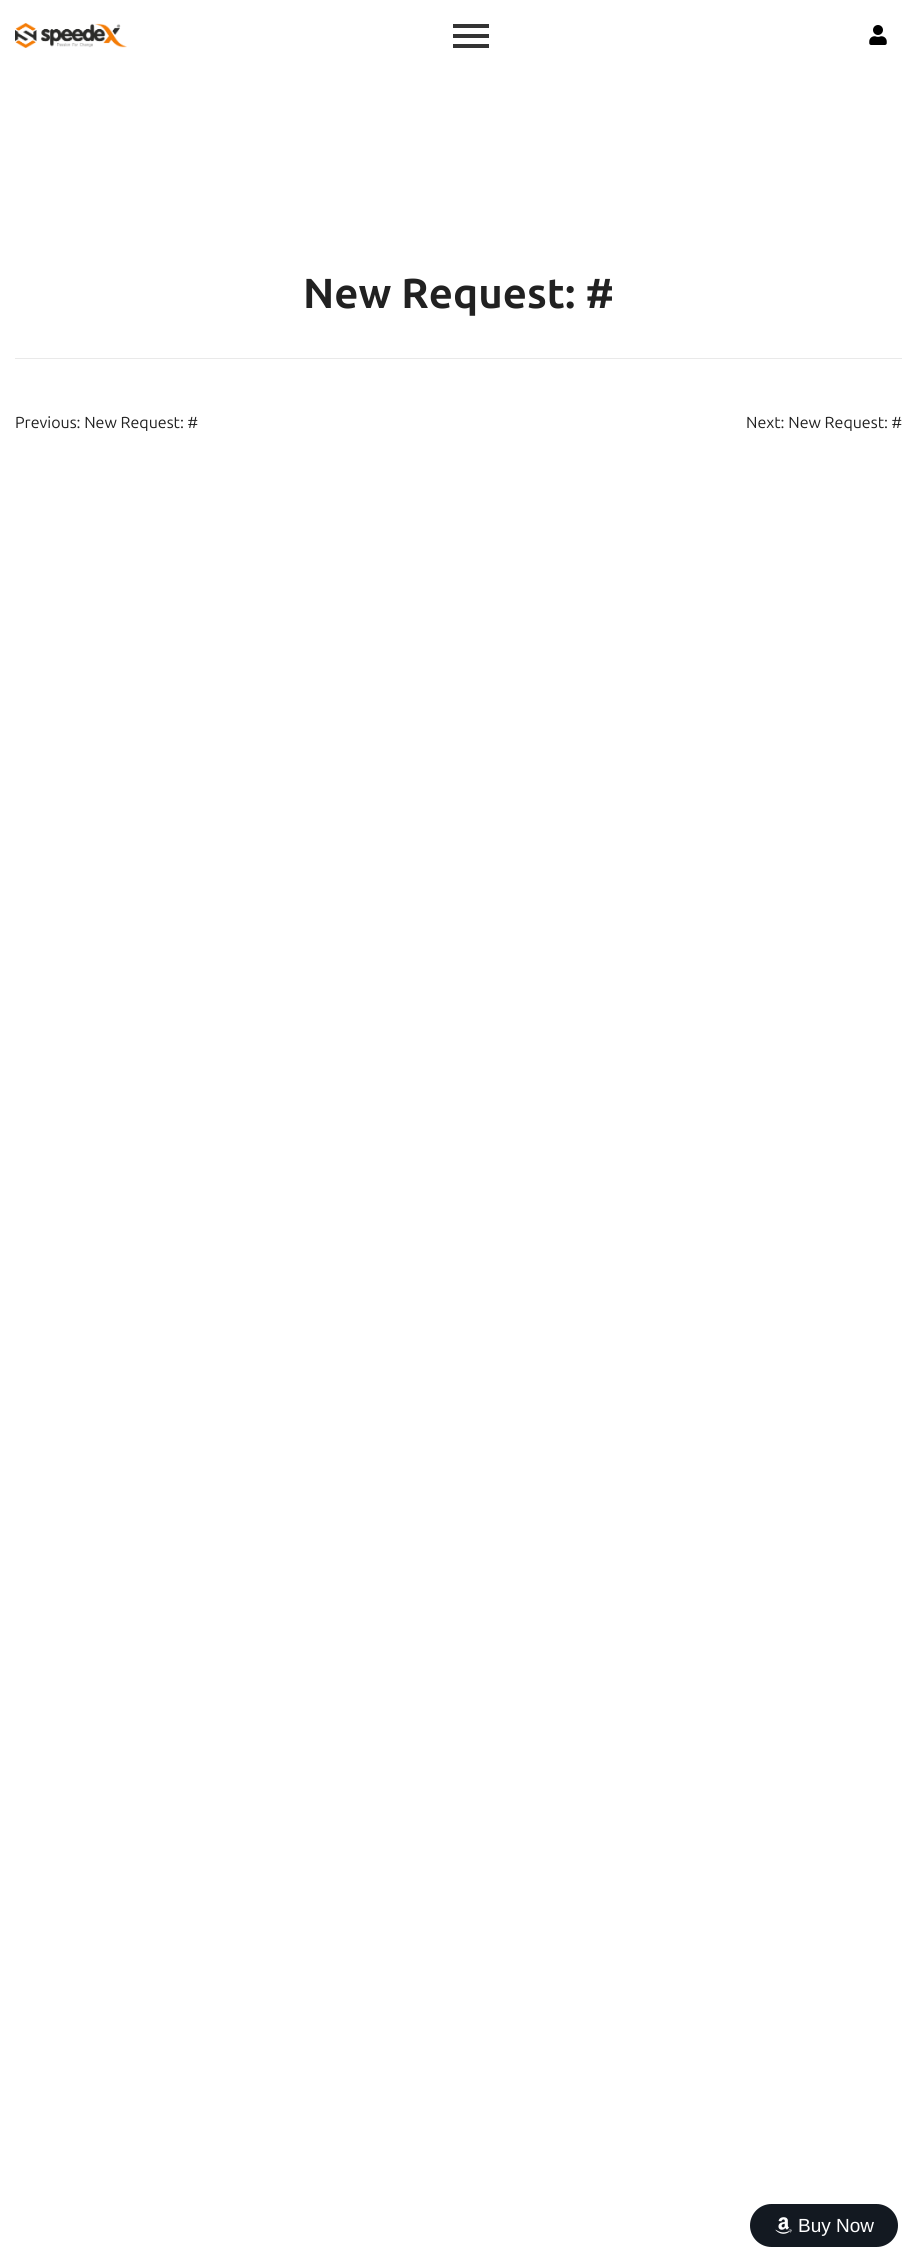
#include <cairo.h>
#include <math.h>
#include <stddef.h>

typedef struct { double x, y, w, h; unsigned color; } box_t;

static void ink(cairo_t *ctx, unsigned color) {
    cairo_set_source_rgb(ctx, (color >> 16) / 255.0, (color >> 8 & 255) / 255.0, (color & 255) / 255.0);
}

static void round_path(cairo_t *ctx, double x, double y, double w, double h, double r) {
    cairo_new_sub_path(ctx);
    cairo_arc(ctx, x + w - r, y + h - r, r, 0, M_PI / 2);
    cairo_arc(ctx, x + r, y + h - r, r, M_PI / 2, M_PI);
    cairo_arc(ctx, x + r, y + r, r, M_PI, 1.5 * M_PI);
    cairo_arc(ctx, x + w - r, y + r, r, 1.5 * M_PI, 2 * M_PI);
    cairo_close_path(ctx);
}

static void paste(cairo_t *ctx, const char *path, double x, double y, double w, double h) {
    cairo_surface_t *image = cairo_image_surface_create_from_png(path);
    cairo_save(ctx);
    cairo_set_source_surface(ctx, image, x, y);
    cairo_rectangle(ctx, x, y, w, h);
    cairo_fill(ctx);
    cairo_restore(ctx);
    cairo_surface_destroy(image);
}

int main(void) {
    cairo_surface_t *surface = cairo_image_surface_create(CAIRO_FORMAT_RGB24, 917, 2266);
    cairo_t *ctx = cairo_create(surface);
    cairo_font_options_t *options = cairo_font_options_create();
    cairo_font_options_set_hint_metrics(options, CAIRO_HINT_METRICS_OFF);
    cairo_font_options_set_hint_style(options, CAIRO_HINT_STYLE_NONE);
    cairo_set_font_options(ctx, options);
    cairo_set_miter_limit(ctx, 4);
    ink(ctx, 0xFFFFFF);
    cairo_paint(ctx);
    paste(ctx, "media/1.png", 15, 23, 112, 25);
    {
        static const box_t items[] = {
            {453, 24, 36, 4, 0x333333},
            {453, 34, 36, 4, 0x333333},
            {453, 44, 36, 4, 0x333333},
        };
        for (size_t i = 0; i < sizeof items / sizeof *items; i++) {
            ink(ctx, items[i].color);
            cairo_rectangle(ctx, items[i].x, items[i].y, items[i].w, items[i].h);
            cairo_fill(ctx);
        }
    }
    paste(ctx, "media/2.png", 869, 25, 18, 20);
    cairo_select_font_face(ctx, "Ubuntu", CAIRO_FONT_SLANT_NORMAL, CAIRO_FONT_WEIGHT_BOLD);
    cairo_set_font_size(ctx, 42);
    ink(ctx, 0x212121);
    cairo_move_to(ctx, 303, 308);
    cairo_show_text(ctx, "New Request: #");
    ink(ctx, 0xE9E9E9);
    cairo_rectangle(ctx, 15, 358, 887, 1);
    cairo_fill(ctx);
    cairo_select_font_face(ctx, "Ubuntu", CAIRO_FONT_SLANT_NORMAL, CAIRO_FONT_WEIGHT_NORMAL);
    cairo_set_font_size(ctx, 16);
    ink(ctx, 0x212121);
    cairo_move_to(ctx, 15, 428);
    cairo_show_text(ctx, "Previous: New Request: #");
    cairo_move_to(ctx, 746, 428);
    cairo_show_text(ctx, "Next: New Request: #");
    ink(ctx, 0x131921);
    round_path(ctx, 750, 2204, 148, 43, 21.5);
    cairo_fill(ctx);
    paste(ctx, "media/3.png", 775, 2217, 17, 17);
    cairo_select_font_face(ctx, "Liberation Sans", CAIRO_FONT_SLANT_NORMAL, CAIRO_FONT_WEIGHT_NORMAL);
    cairo_set_font_size(ctx, 19);
    ink(ctx, 0xFFFFFF);
    cairo_move_to(ctx, 798, 2232);
    cairo_show_text(ctx, "Buy Now");
    cairo_surface_write_to_png(surface, "image.png");
    cairo_font_options_destroy(options);
    cairo_destroy(ctx);
    cairo_surface_destroy(surface);
    return 0;
}
